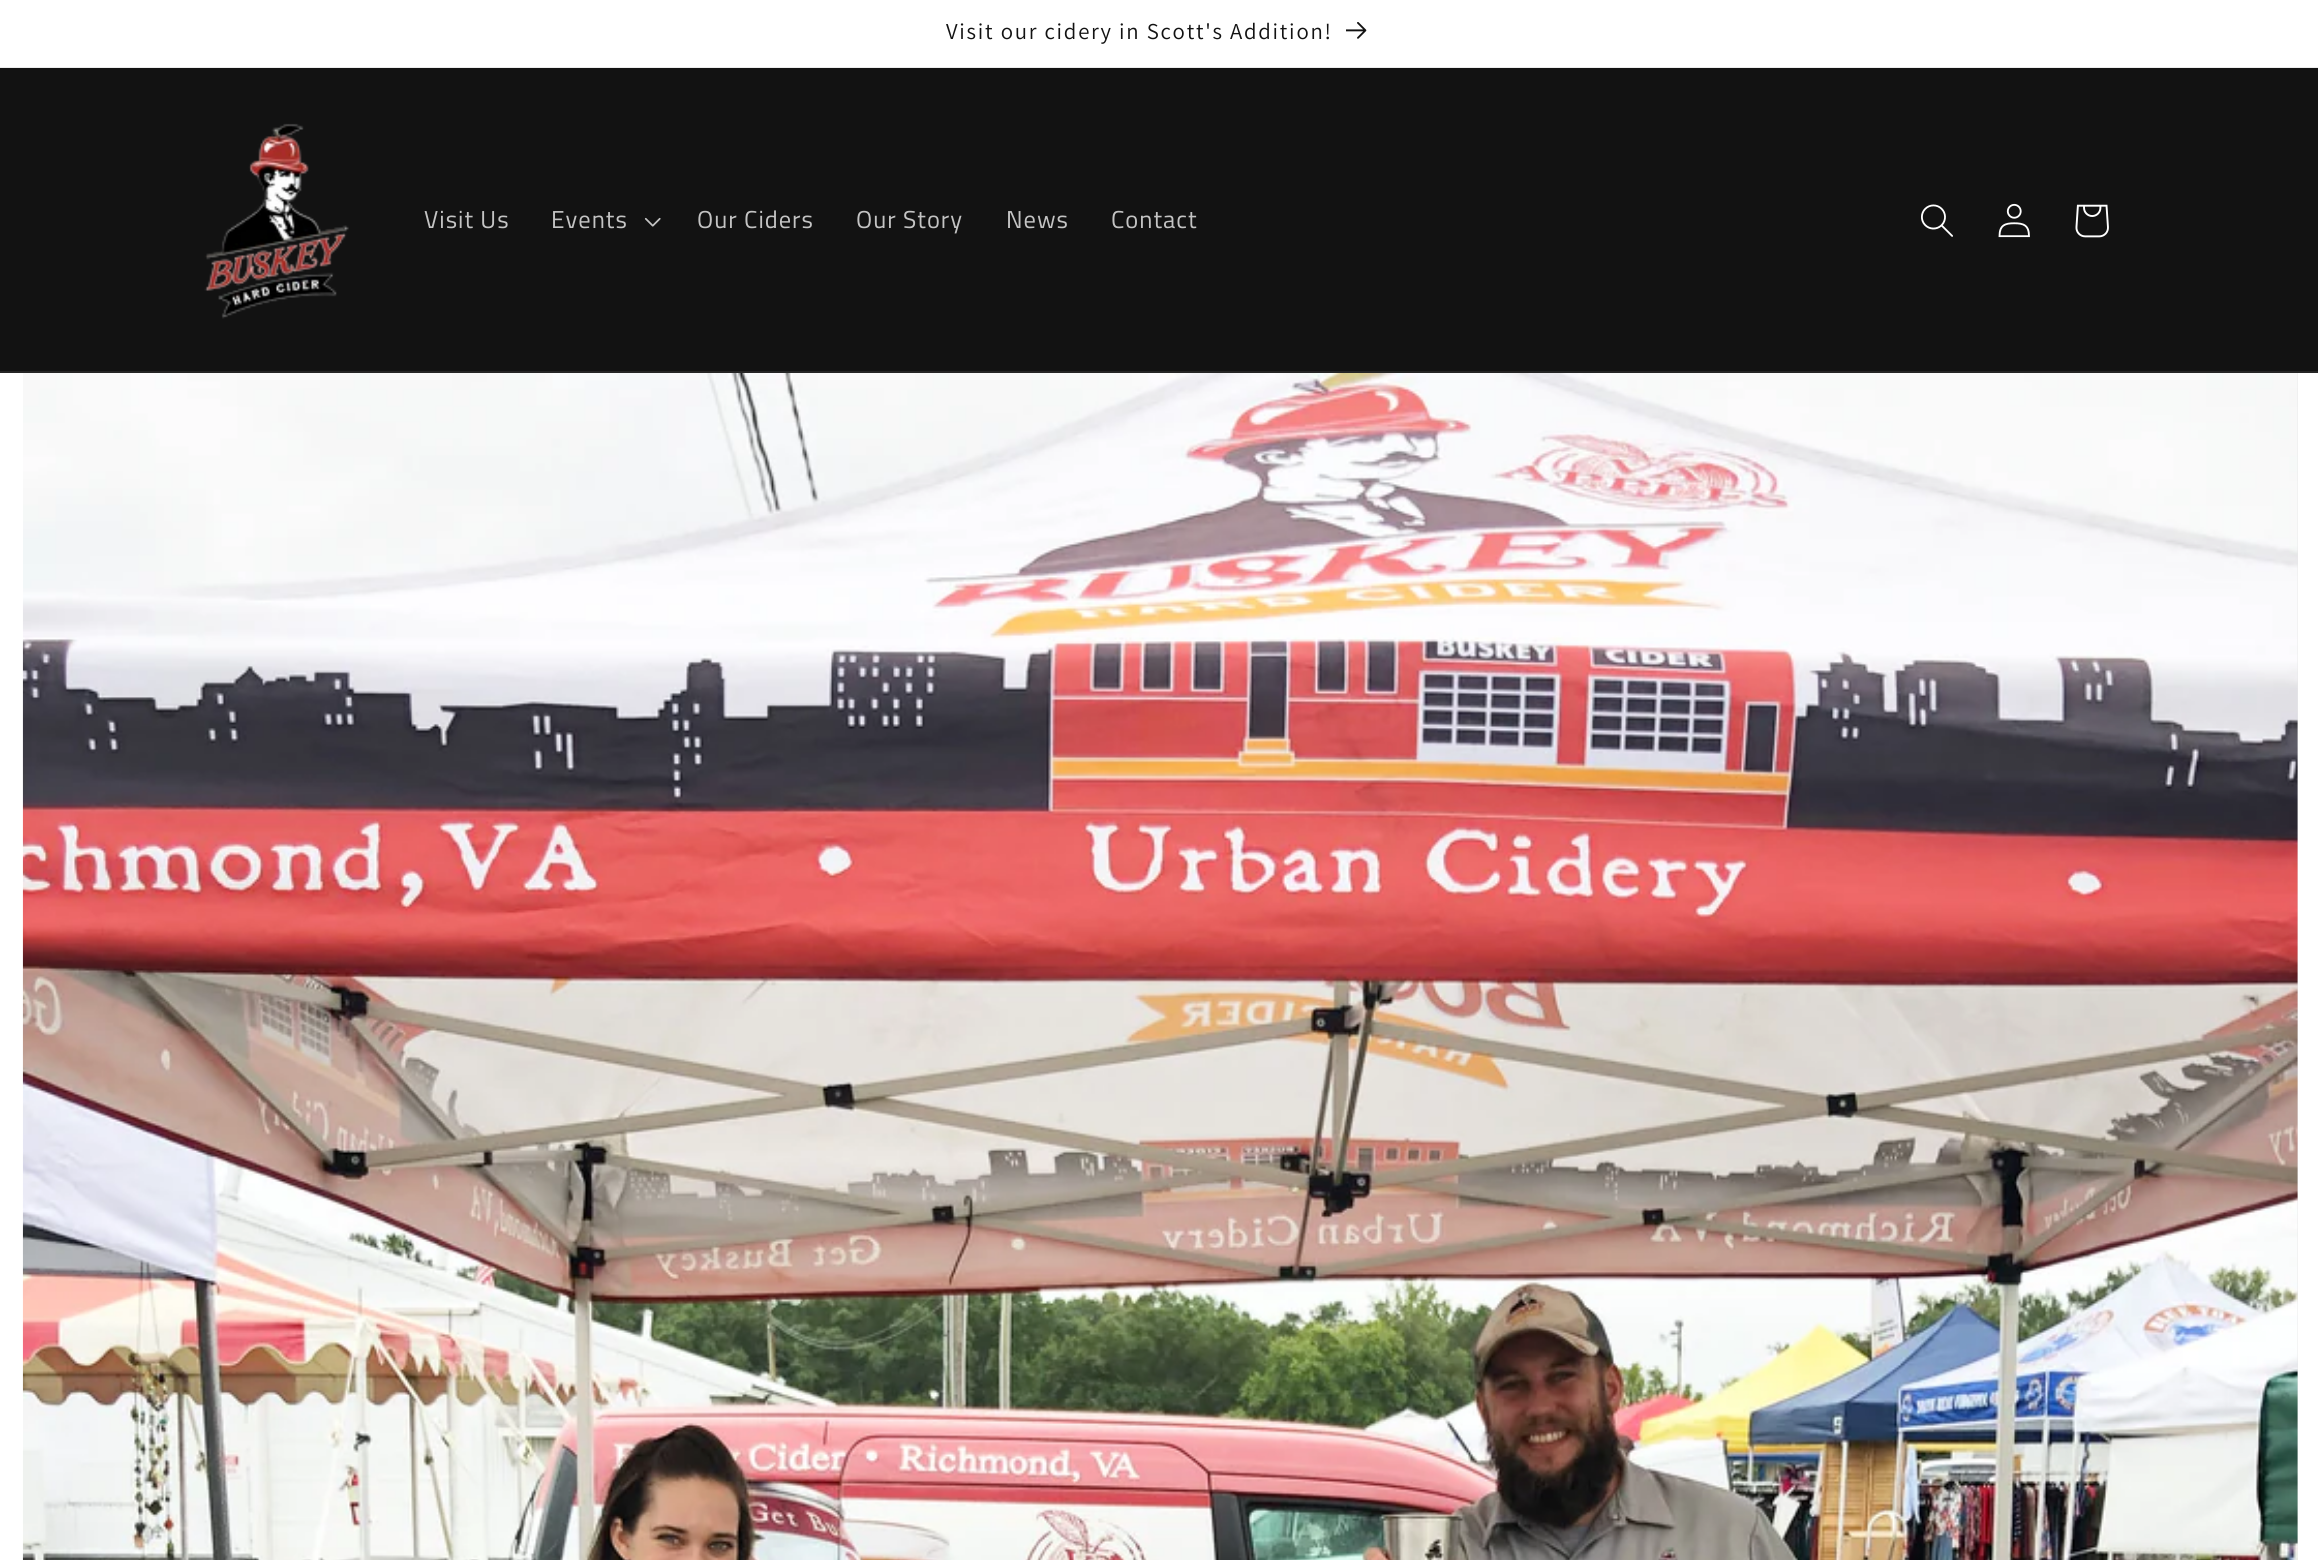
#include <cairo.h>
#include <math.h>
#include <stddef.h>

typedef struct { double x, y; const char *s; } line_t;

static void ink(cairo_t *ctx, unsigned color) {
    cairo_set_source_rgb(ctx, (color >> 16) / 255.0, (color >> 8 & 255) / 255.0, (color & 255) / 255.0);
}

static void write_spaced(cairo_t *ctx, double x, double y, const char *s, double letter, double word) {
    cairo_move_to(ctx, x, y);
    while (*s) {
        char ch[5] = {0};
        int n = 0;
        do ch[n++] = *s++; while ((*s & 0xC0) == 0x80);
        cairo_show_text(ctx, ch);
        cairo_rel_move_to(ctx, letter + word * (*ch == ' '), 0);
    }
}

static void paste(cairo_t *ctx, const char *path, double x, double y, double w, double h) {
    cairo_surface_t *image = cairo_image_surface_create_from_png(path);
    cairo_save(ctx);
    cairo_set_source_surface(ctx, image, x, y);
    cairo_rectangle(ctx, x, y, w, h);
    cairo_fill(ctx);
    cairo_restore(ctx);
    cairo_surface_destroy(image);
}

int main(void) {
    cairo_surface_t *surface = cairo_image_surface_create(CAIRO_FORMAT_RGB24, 2318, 1560);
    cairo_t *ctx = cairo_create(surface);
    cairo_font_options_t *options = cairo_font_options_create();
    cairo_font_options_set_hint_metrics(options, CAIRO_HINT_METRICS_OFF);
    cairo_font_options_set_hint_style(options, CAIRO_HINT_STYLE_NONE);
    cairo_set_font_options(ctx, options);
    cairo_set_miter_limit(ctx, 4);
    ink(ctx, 0xFFFFFF);
    cairo_paint(ctx);
    ink(ctx, 0xECECEC);
    cairo_rectangle(ctx, 0, 67, 2318, 1);
    cairo_fill(ctx);
    cairo_select_font_face(ctx, "Assistant", CAIRO_FONT_SLANT_NORMAL, CAIRO_FONT_WEIGHT_NORMAL);
    cairo_set_font_size(ctx, 22.75);
    ink(ctx, 0x121212);
    write_spaced(ctx, 946, 39, "Visit our cidery in Scott's Addition!", 1.75, 0);
    paste(ctx, "media/1.png", 1346, 22, 21, 17);
    cairo_rectangle(ctx, 0, 68, 2318, 303);
    cairo_fill(ctx);
    ink(ctx, 0x252525);
    cairo_rectangle(ctx, 0, 371, 2318, 2);
    cairo_fill(ctx);
    paste(ctx, "media/2.png", 204, 123, 145, 196);
    cairo_select_font_face(ctx, "Titillium Web", CAIRO_FONT_SLANT_NORMAL, CAIRO_FONT_WEIGHT_NORMAL);
    cairo_set_font_size(ctx, 24.5);
    ink(ctx, 0xC4C4C4);
    write_spaced(ctx, 424, 228, "Visit Us", 1, 0);
    write_spaced(ctx, 551, 228, "Events", 1, 0);
    paste(ctx, "media/3.png", 644, 217, 17, 10);
    {
        static const line_t items[] = {
            {697, 228, "Our Ciders"},
            {856, 228, "Our Story"},
            {1006, 228, "News"},
            {1111, 228, "Contact"},
        };
        for (size_t i = 0; i < sizeof items / sizeof *items; i++) {
            write_spaced(ctx, items[i].x, items[i].y, items[i].s, 1, 0);
        }
    }
    paste(ctx, "media/4.png", 1921, 204, 32, 33);
    paste(ctx, "media/5.png", 1998, 203, 32, 35);
    paste(ctx, "media/6.png", 2075, 204, 34, 34);
    ink(ctx, 0xE8E8E8);
    cairo_rectangle(ctx, 2297, 373, 1, 1187);
    cairo_fill(ctx);
    paste(ctx, "media/7.png", 22, 373, 2276, 1187);
    cairo_surface_write_to_png(surface, "image.png");
    cairo_font_options_destroy(options);
    cairo_destroy(ctx);
    cairo_surface_destroy(surface);
    return 0;
}
